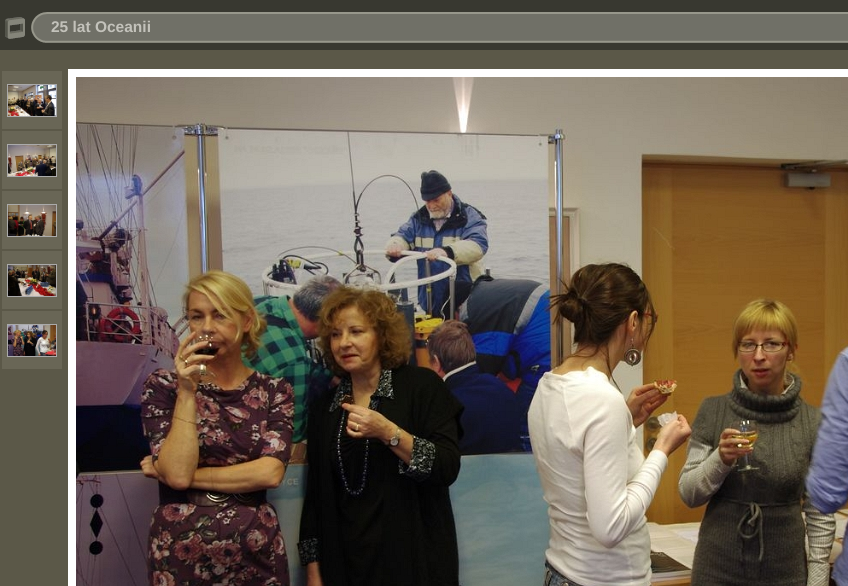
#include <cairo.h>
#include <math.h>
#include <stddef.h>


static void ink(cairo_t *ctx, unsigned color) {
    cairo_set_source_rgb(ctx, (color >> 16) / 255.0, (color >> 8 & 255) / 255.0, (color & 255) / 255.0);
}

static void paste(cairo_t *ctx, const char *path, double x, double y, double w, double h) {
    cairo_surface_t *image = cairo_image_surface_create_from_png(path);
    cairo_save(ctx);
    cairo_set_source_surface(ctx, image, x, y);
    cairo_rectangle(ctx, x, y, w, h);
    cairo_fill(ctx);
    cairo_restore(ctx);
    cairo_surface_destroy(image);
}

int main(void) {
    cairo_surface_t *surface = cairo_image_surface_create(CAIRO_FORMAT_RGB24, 848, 586);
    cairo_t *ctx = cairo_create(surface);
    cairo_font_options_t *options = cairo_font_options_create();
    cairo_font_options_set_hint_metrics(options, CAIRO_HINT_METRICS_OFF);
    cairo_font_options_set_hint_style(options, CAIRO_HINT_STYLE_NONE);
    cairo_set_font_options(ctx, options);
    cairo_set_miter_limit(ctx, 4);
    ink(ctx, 0x5B5848);
    cairo_paint(ctx);
    ink(ctx, 0x383830);
    cairo_rectangle(ctx, 0, 0, 848, 50);
    cairo_fill(ctx);
    paste(ctx, "media/1.png", 5, 17, 20, 22);
    paste(ctx, "media/2.png", 31, 12, 20, 31);
    paste(ctx, "media/3.png", 51, 12, 796, 31);
    cairo_select_font_face(ctx, "Liberation Sans", CAIRO_FONT_SLANT_NORMAL, CAIRO_FONT_WEIGHT_BOLD);
    cairo_set_font_size(ctx, 15.5);
    ink(ctx, 0xC3C2BB);
    cairo_move_to(ctx, 51, 32);
    cairo_show_text(ctx, "25 lat Oceanii");
    paste(ctx, "media/4.png", 847, 12, 1, 31);
    ink(ctx, 0x696656);
    cairo_rectangle(ctx, 2, 71, 60, 58);
    cairo_fill(ctx);
    cairo_rectangle(ctx, 7.5, 84.5, 49, 32);
    ink(ctx, 0xAAAAAA);
    cairo_set_line_width(ctx, 1);
    cairo_stroke(ctx);
    paste(ctx, "media/5.png", 8, 85, 48, 31);
    ink(ctx, 0x696656);
    cairo_rectangle(ctx, 2, 131, 60, 58);
    cairo_fill(ctx);
    cairo_rectangle(ctx, 7.5, 144.5, 49, 32);
    ink(ctx, 0xAAAAAA);
    cairo_stroke(ctx);
    paste(ctx, "media/6.png", 8, 145, 48, 31);
    ink(ctx, 0x696656);
    cairo_rectangle(ctx, 2, 191, 60, 58);
    cairo_fill(ctx);
    cairo_rectangle(ctx, 7.5, 204.5, 49, 32);
    ink(ctx, 0xAAAAAA);
    cairo_stroke(ctx);
    paste(ctx, "media/7.png", 8, 205, 48, 31);
    ink(ctx, 0x696656);
    cairo_rectangle(ctx, 2, 251, 60, 58);
    cairo_fill(ctx);
    cairo_rectangle(ctx, 7.5, 264.5, 49, 32);
    ink(ctx, 0xAAAAAA);
    cairo_stroke(ctx);
    paste(ctx, "media/8.png", 8, 265, 48, 31);
    ink(ctx, 0x696656);
    cairo_rectangle(ctx, 2, 311, 60, 58);
    cairo_fill(ctx);
    cairo_rectangle(ctx, 7.5, 324.5, 49, 32);
    ink(ctx, 0xAAAAAA);
    cairo_stroke(ctx);
    paste(ctx, "media/9.png", 8, 325, 48, 31);
    cairo_rectangle(ctx, 72, 73, 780, 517);
    ink(ctx, 0xFFFFFF);
    cairo_set_line_width(ctx, 8);
    cairo_stroke(ctx);
    paste(ctx, "media/10.png", 76, 77, 772, 509);
    cairo_surface_write_to_png(surface, "image.png");
    cairo_font_options_destroy(options);
    cairo_destroy(ctx);
    cairo_surface_destroy(surface);
    return 0;
}
